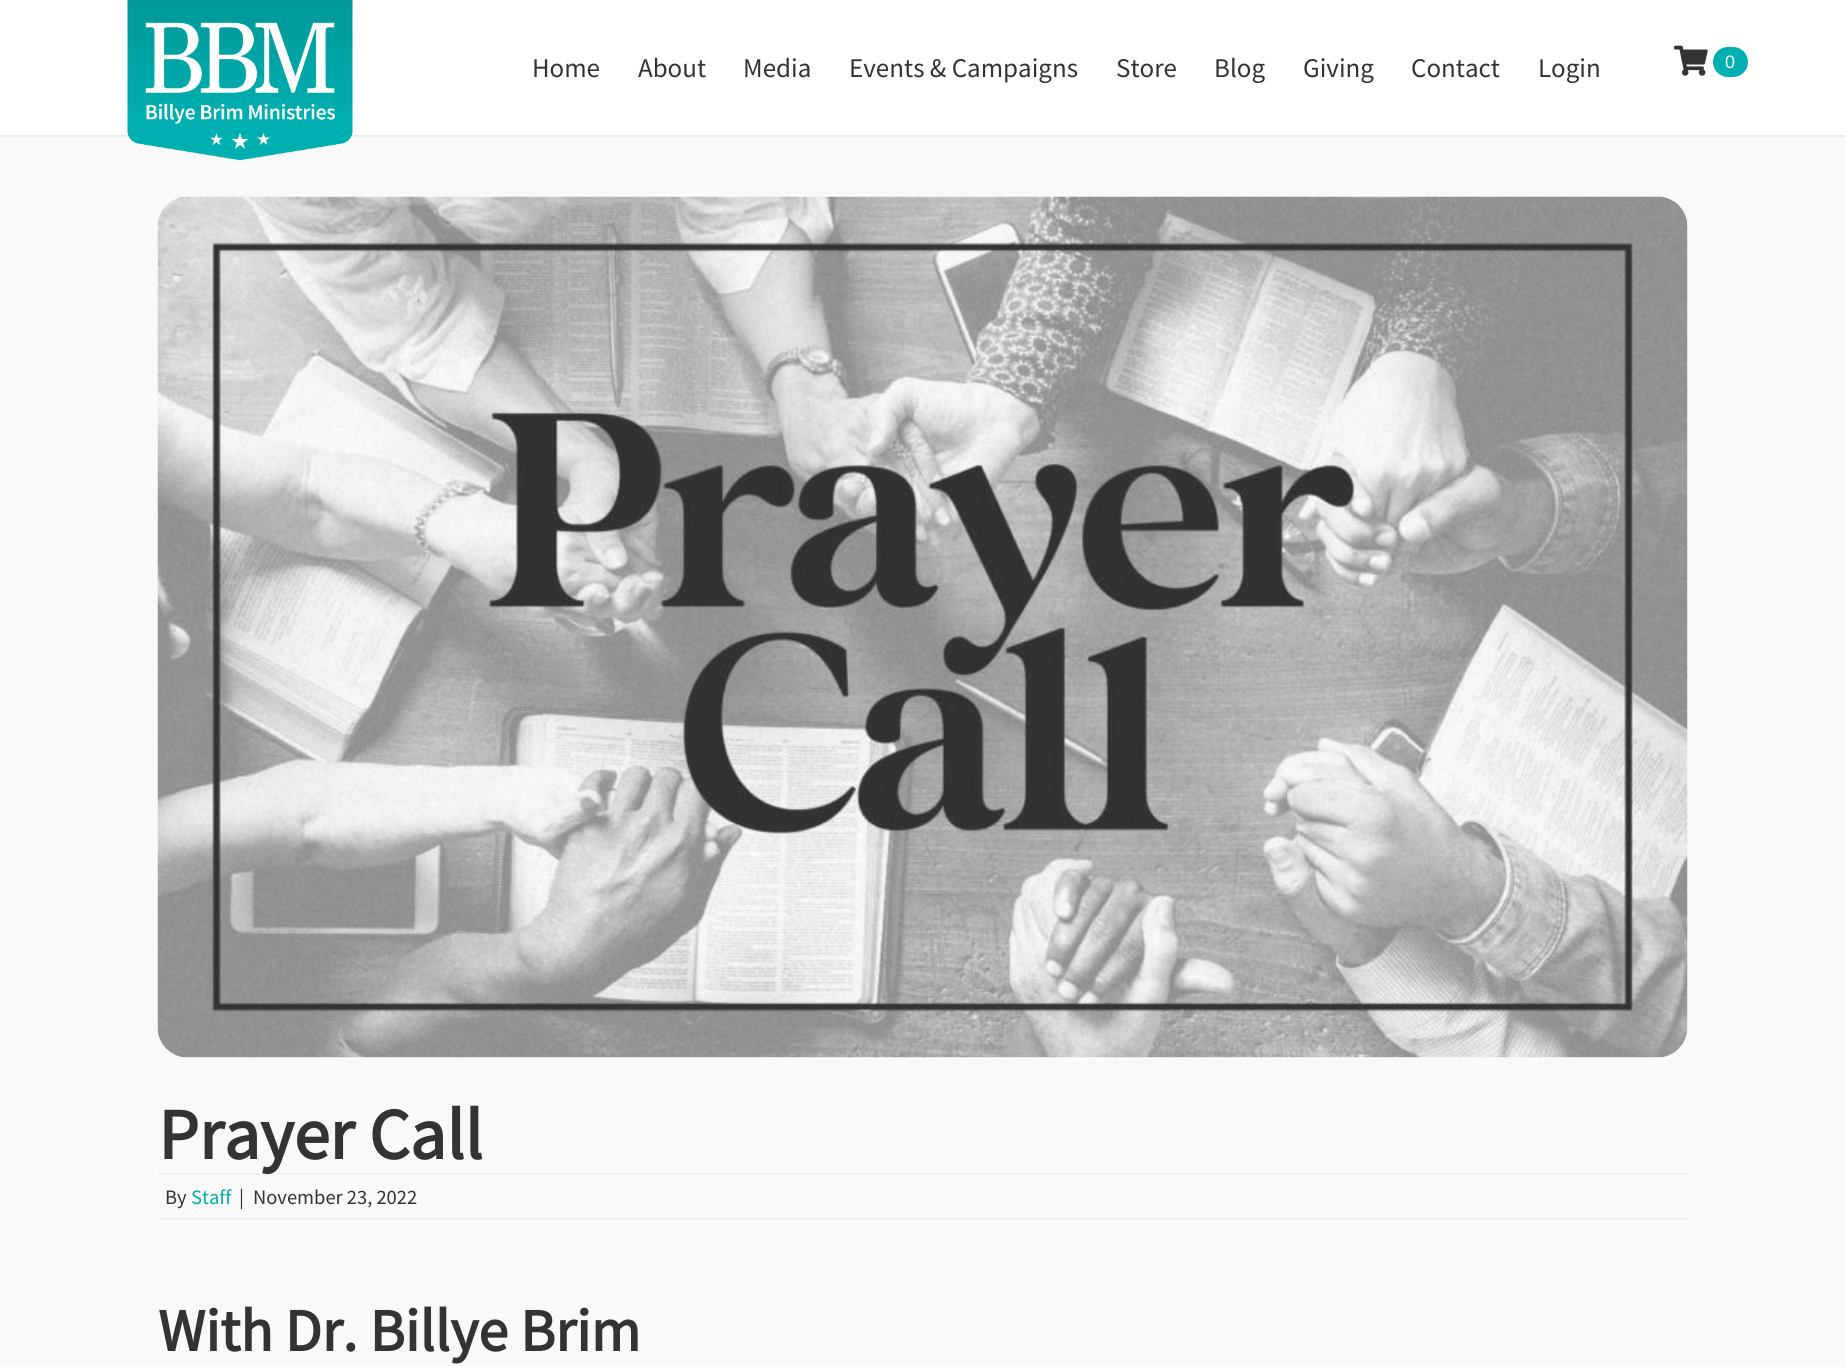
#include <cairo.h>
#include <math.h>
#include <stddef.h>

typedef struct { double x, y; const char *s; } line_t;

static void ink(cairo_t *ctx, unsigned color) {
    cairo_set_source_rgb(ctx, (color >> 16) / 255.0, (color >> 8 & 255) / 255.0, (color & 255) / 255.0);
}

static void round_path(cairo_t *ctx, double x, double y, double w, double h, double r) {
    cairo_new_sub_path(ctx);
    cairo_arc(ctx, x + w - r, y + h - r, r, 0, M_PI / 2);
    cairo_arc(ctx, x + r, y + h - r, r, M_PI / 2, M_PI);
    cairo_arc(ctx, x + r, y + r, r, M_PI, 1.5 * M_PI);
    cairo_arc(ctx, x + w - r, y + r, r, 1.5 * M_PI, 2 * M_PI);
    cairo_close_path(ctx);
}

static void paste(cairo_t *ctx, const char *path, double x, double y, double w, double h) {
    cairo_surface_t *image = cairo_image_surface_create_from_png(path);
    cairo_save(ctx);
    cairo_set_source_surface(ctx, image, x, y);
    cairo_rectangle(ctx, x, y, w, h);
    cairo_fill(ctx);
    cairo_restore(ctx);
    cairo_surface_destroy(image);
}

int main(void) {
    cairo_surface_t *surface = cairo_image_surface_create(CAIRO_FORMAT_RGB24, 1845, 1367);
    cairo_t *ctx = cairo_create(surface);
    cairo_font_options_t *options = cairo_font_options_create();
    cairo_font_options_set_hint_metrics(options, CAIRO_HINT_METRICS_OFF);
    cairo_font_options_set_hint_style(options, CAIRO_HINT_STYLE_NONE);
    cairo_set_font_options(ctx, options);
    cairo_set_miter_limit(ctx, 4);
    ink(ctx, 0xF9F9F9);
    cairo_paint(ctx);
    ink(ctx, 0xFFFFFF);
    cairo_rectangle(ctx, 0, 0, 1845, 135);
    cairo_fill(ctx);
    ink(ctx, 0xEFEFEF);
    cairo_rectangle(ctx, 0, 135, 1845, 2);
    cairo_fill(ctx);
    paste(ctx, "media/1.png", 127, 0, 226, 161);
    cairo_select_font_face(ctx, "Source Sans Pro", CAIRO_FONT_SLANT_NORMAL, CAIRO_FONT_WEIGHT_NORMAL);
    cairo_set_font_size(ctx, 27);
    ink(ctx, 0x333333);
    {
        static const line_t items[] = {
            {532, 77, "Home"},
            {638, 77, "About"},
            {743, 77, "Media"},
            {849, 77, "Events & Campaigns"},
            {1116, 77, "Store"},
            {1214, 77, "Blog"},
            {1303, 77, "Giving"},
            {1411, 77, "Contact"},
            {1538, 77, "Login"},
        };
        for (size_t i = 0; i < sizeof items / sizeof *items; i++) {
            cairo_move_to(ctx, items[i].x, items[i].y);
            cairo_show_text(ctx, items[i].s);
        }
    }
    paste(ctx, "media/2.png", 1674, 45, 34, 31);
    ink(ctx, 0x00AFB0);
    round_path(ctx, 1713, 47, 35, 30, 15);
    cairo_fill(ctx);
    cairo_select_font_face(ctx, "Liberation Sans", CAIRO_FONT_SLANT_NORMAL, CAIRO_FONT_WEIGHT_NORMAL);
    cairo_set_font_size(ctx, 18);
    ink(ctx, 0xFFFFFF);
    cairo_move_to(ctx, 1725, 68);
    cairo_show_text(ctx, "0");
    paste(ctx, "media/3.png", 157, 196, 1531, 862);
    ink(ctx, 0xEFEFEF);
    cairo_rectangle(ctx, 158, 1173, 1530, 2);
    cairo_fill(ctx);
    cairo_select_font_face(ctx, "Source Sans Pro", CAIRO_FONT_SLANT_NORMAL, CAIRO_FONT_WEIGHT_BOLD);
    cairo_set_font_size(ctx, 72);
    ink(ctx, 0x333333);
    cairo_move_to(ctx, 158, 1159);
    cairo_show_text(ctx, "Prayer Call");
    ink(ctx, 0xEFEFEF);
    cairo_rectangle(ctx, 158, 1218, 1530, 2);
    cairo_fill(ctx);
    cairo_select_font_face(ctx, "Source Sans Pro", CAIRO_FONT_SLANT_NORMAL, CAIRO_FONT_WEIGHT_NORMAL);
    cairo_set_font_size(ctx, 20.5);
    ink(ctx, 0x333333);
    cairo_move_to(ctx, 165, 1204);
    cairo_show_text(ctx, "By");
    ink(ctx, 0x00AFB0);
    cairo_move_to(ctx, 191, 1204);
    cairo_show_text(ctx, "Staff");
    ink(ctx, 0x333333);
    cairo_move_to(ctx, 239, 1204);
    cairo_show_text(ctx, "|");
    cairo_move_to(ctx, 253, 1204);
    cairo_show_text(ctx, "November 23, 2022");
    cairo_select_font_face(ctx, "Source Sans Pro", CAIRO_FONT_SLANT_NORMAL, CAIRO_FONT_WEIGHT_BOLD);
    cairo_set_font_size(ctx, 60);
    cairo_move_to(ctx, 158, 1351);
    cairo_show_text(ctx, "With Dr. Billye Brim");
    cairo_surface_write_to_png(surface, "image.png");
    cairo_font_options_destroy(options);
    cairo_destroy(ctx);
    cairo_surface_destroy(surface);
    return 0;
}
